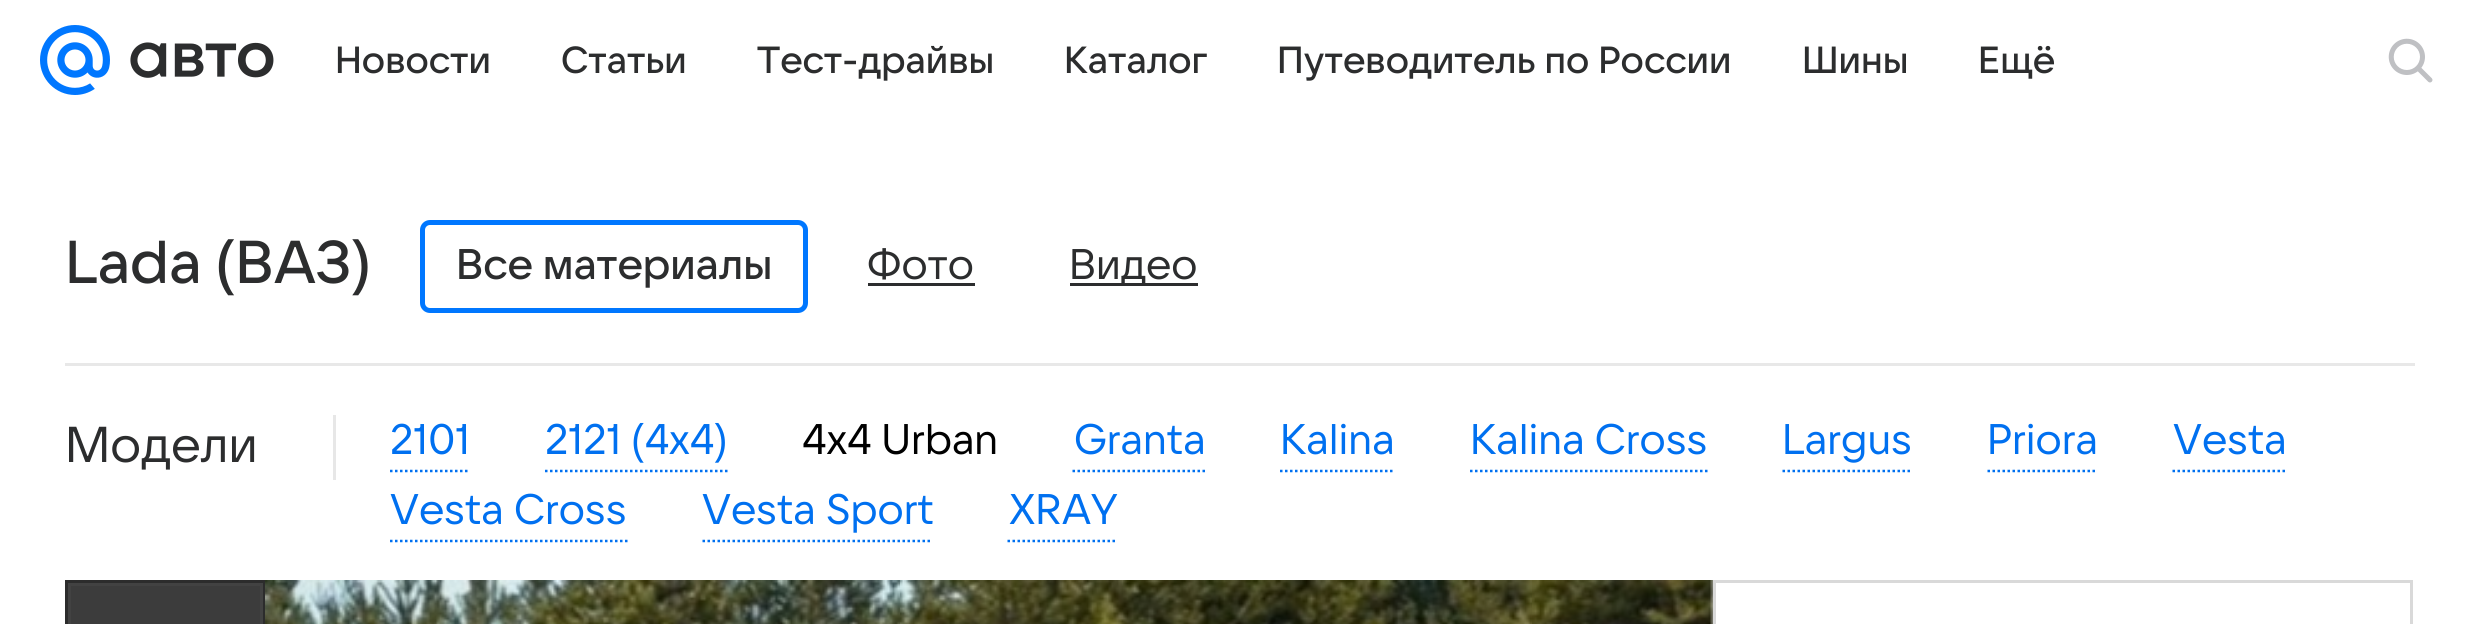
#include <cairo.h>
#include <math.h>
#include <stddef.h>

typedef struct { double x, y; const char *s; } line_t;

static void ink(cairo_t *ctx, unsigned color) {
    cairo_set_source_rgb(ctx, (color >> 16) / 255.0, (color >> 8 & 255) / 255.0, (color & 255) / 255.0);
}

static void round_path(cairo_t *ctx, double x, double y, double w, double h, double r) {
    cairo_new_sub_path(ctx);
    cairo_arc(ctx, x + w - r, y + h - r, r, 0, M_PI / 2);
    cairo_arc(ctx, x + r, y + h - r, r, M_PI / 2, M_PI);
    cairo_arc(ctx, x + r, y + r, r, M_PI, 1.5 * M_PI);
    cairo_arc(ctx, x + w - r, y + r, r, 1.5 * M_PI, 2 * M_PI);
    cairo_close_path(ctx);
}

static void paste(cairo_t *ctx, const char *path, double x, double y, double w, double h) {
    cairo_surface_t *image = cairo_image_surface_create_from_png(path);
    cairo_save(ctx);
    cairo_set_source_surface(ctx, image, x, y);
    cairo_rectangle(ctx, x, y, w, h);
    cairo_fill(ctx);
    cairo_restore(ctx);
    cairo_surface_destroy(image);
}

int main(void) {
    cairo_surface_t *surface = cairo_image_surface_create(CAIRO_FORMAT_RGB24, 2480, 624);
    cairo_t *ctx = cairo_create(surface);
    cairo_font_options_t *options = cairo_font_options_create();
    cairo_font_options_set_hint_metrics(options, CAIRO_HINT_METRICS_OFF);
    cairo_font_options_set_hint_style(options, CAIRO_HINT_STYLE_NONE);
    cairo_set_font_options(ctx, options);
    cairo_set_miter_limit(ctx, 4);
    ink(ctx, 0xFFFFFF);
    cairo_paint(ctx);
    paste(ctx, "media/1.png", 40, 25, 70, 70);
    paste(ctx, "media/2.png", 130, 42, 144, 36);
    cairo_select_font_face(ctx, "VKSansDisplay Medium", CAIRO_FONT_SLANT_NORMAL, CAIRO_FONT_WEIGHT_NORMAL);
    cairo_set_font_size(ctx, 37.5);
    ink(ctx, 0x2C2D2E);
    {
        static const line_t items[] = {
            {335, 73, "Новости"},
            {561, 73, "Статьи"},
            {757, 73, "Тест-драйвы"},
            {1064, 73, "Каталог"},
            {1277, 73, "Путеводитель по России"},
            {1802, 73, "Шины"},
            {1978, 73, "Ещё"},
        };
        for (size_t i = 0; i < sizeof items / sizeof *items; i++) {
            cairo_move_to(ctx, items[i].x, items[i].y);
            cairo_show_text(ctx, items[i].s);
        }
    }
    paste(ctx, "media/3.png", 2388, 38, 45, 45);
    cairo_set_font_size(ctx, 60);
    cairo_move_to(ctx, 65, 283);
    cairo_show_text(ctx, "Lada (ВАЗ)");
    round_path(ctx, 422.5, 222.5, 383, 88, 7.5);
    ink(ctx, 0x0077FF);
    cairo_set_line_width(ctx, 5);
    cairo_stroke(ctx);
    cairo_set_font_size(ctx, 42.5);
    ink(ctx, 0x2C2D2E);
    cairo_move_to(ctx, 456, 279);
    cairo_show_text(ctx, "Все материалы");
    cairo_select_font_face(ctx, "VKSansDisplay", CAIRO_FONT_SLANT_NORMAL, CAIRO_FONT_WEIGHT_NORMAL);
    cairo_move_to(ctx, 867, 279);
    cairo_show_text(ctx, "Фото");
    cairo_rectangle(ctx, 868, 283, 107, 3);
    cairo_fill(ctx);
    cairo_rectangle(ctx, 1070, 283, 128, 3);
    cairo_fill(ctx);
    cairo_move_to(ctx, 1069, 279);
    cairo_show_text(ctx, "Видео");
    ink(ctx, 0xE8E8E8);
    cairo_rectangle(ctx, 65, 363, 2350, 3);
    cairo_fill(ctx);
    ink(ctx, 0xE7E7E7);
    cairo_rectangle(ctx, 333, 415, 3, 65);
    cairo_fill(ctx);
    cairo_set_font_size(ctx, 50);
    ink(ctx, 0x2C2D2E);
    cairo_move_to(ctx, 65, 462);
    cairo_show_text(ctx, "Модели");
    cairo_new_path(ctx);
    cairo_move_to(ctx, 390, 471);
    cairo_line_to(ctx, 470, 471);
    ink(ctx, 0x0070F0);
    cairo_set_line_width(ctx, 2.5);
    cairo_set_dash(ctx, (double[]){2.5, 2.5}, 2, 0);
    cairo_stroke(ctx);
    cairo_set_font_size(ctx, 42.5);
    cairo_move_to(ctx, 390, 454);
    cairo_show_text(ctx, "2101");
    cairo_new_path(ctx);
    cairo_move_to(ctx, 545, 471);
    cairo_line_to(ctx, 727.5, 471);
    cairo_stroke(ctx);
    cairo_move_to(ctx, 545, 454);
    cairo_show_text(ctx, "2121 (4x4)");
    ink(ctx, 0x000000);
    cairo_move_to(ctx, 802, 454);
    cairo_show_text(ctx, "4х4 Urban");
    cairo_new_path(ctx);
    cairo_move_to(ctx, 1072.5, 471);
    cairo_line_to(ctx, 1205, 471);
    ink(ctx, 0x0070F0);
    cairo_stroke(ctx);
    cairo_move_to(ctx, 1074, 454);
    cairo_show_text(ctx, "Granta");
    cairo_new_path(ctx);
    cairo_move_to(ctx, 1280, 471);
    cairo_line_to(ctx, 1395, 471);
    cairo_stroke(ctx);
    cairo_move_to(ctx, 1280, 454);
    cairo_show_text(ctx, "Kalina");
    cairo_new_path(ctx);
    cairo_move_to(ctx, 1470, 471);
    cairo_line_to(ctx, 1707.5, 471);
    cairo_stroke(ctx);
    cairo_move_to(ctx, 1470, 454);
    cairo_show_text(ctx, "Kalina Cross");
    cairo_new_path(ctx);
    cairo_move_to(ctx, 1782.5, 471);
    cairo_line_to(ctx, 1912.5, 471);
    cairo_stroke(ctx);
    cairo_move_to(ctx, 1782, 454);
    cairo_show_text(ctx, "Largus");
    cairo_new_path(ctx);
    cairo_move_to(ctx, 1987.5, 471);
    cairo_line_to(ctx, 2097.5, 471);
    cairo_stroke(ctx);
    cairo_move_to(ctx, 1987, 454);
    cairo_show_text(ctx, "Priora");
    cairo_new_path(ctx);
    cairo_move_to(ctx, 2172.5, 471);
    cairo_line_to(ctx, 2287.5, 471);
    cairo_stroke(ctx);
    cairo_move_to(ctx, 2173, 454);
    cairo_show_text(ctx, "Vesta");
    cairo_new_path(ctx);
    cairo_move_to(ctx, 390, 541);
    cairo_line_to(ctx, 627.5, 541);
    cairo_stroke(ctx);
    cairo_move_to(ctx, 390, 524);
    cairo_show_text(ctx, "Vesta Cross");
    cairo_new_path(ctx);
    cairo_move_to(ctx, 702.5, 541);
    cairo_line_to(ctx, 932.5, 541);
    cairo_stroke(ctx);
    cairo_move_to(ctx, 702, 524);
    cairo_show_text(ctx, "Vesta Sport");
    cairo_new_path(ctx);
    cairo_move_to(ctx, 1007.5, 541);
    cairo_line_to(ctx, 1117.5, 541);
    cairo_stroke(ctx);
    cairo_move_to(ctx, 1009, 524);
    cairo_show_text(ctx, "XRAY");
    ink(ctx, 0x3C3C3C);
    cairo_rectangle(ctx, 71, 586, 189, 38);
    cairo_fill(ctx);
    cairo_rectangle(ctx, 66.5, 581.5, 197, 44);
    ink(ctx, 0x2C2C2C);
    cairo_set_line_width(ctx, 3);
    cairo_set_dash(ctx, NULL, 0, 0);
    cairo_stroke(ctx);
    cairo_rectangle(ctx, 69.5, 584.5, 192, 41);
    ink(ctx, 0x424242);
    cairo_stroke(ctx);
    paste(ctx, "media/4.png", 265, 580, 1448, 44);
    cairo_rectangle(ctx, 1714.5, 581.5, 697, 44);
    ink(ctx, 0xD9D9D9);
    cairo_stroke(ctx);
    cairo_surface_write_to_png(surface, "image.png");
    cairo_font_options_destroy(options);
    cairo_destroy(ctx);
    cairo_surface_destroy(surface);
    return 0;
}
